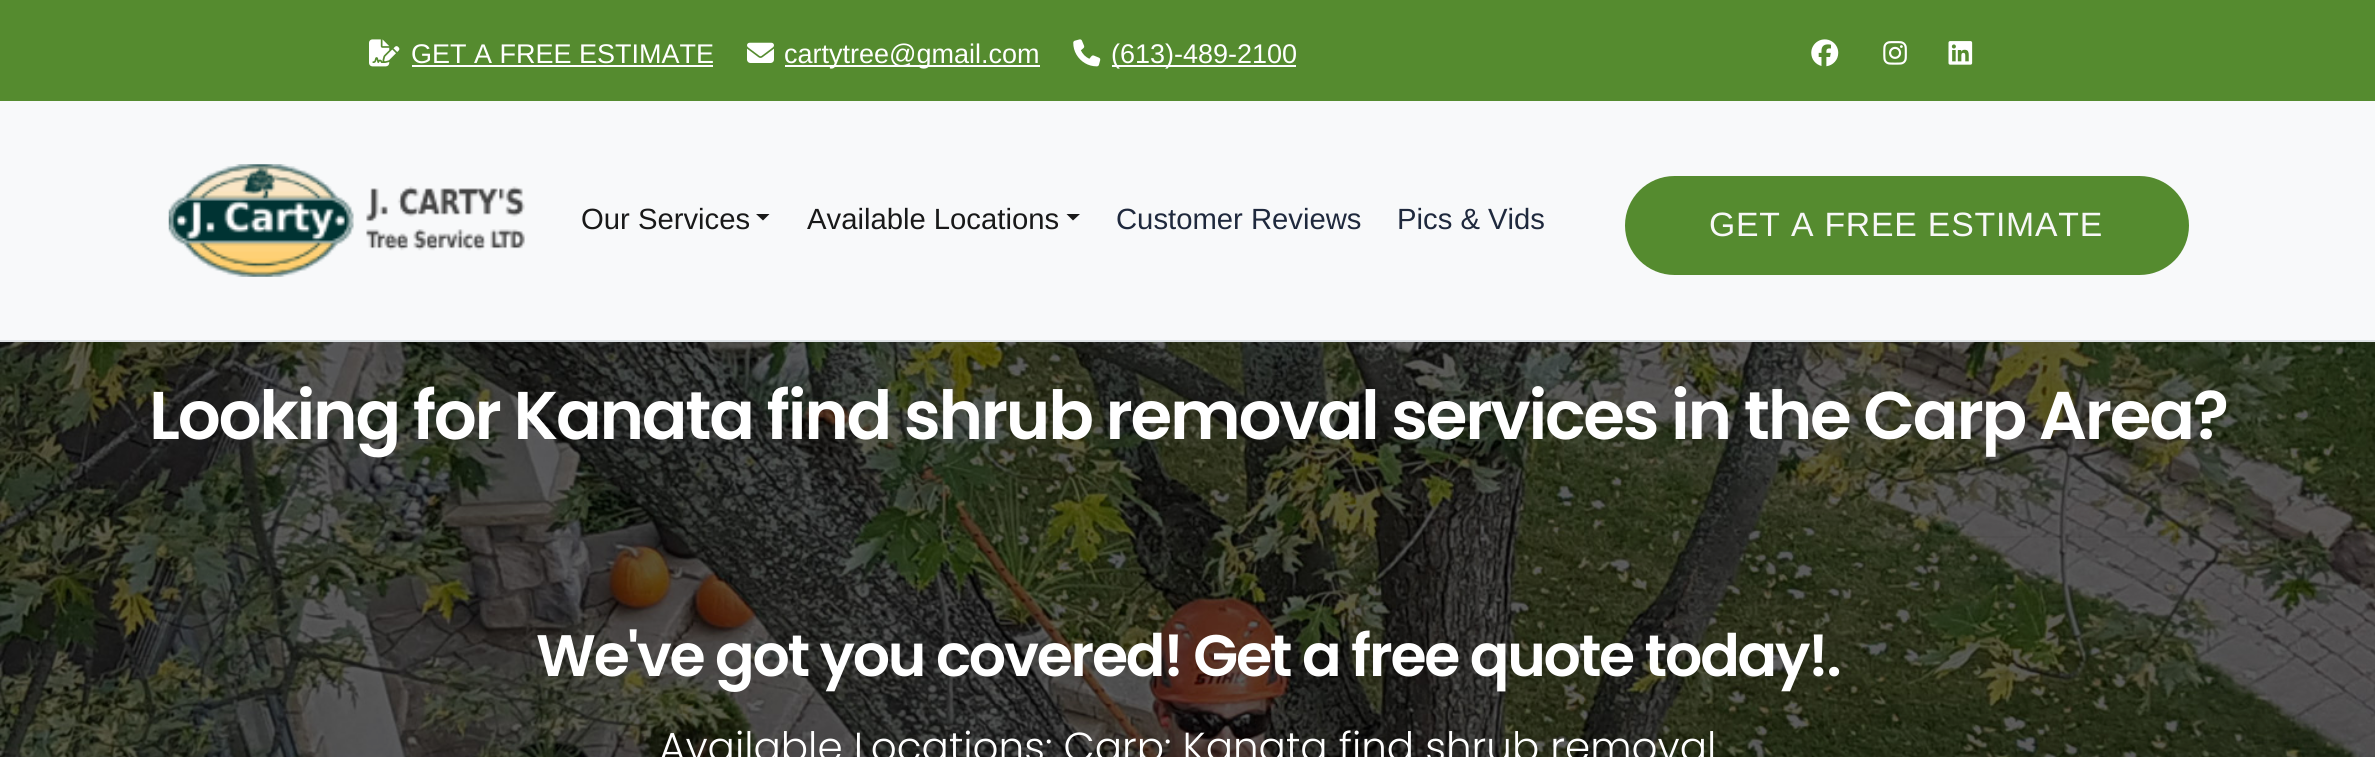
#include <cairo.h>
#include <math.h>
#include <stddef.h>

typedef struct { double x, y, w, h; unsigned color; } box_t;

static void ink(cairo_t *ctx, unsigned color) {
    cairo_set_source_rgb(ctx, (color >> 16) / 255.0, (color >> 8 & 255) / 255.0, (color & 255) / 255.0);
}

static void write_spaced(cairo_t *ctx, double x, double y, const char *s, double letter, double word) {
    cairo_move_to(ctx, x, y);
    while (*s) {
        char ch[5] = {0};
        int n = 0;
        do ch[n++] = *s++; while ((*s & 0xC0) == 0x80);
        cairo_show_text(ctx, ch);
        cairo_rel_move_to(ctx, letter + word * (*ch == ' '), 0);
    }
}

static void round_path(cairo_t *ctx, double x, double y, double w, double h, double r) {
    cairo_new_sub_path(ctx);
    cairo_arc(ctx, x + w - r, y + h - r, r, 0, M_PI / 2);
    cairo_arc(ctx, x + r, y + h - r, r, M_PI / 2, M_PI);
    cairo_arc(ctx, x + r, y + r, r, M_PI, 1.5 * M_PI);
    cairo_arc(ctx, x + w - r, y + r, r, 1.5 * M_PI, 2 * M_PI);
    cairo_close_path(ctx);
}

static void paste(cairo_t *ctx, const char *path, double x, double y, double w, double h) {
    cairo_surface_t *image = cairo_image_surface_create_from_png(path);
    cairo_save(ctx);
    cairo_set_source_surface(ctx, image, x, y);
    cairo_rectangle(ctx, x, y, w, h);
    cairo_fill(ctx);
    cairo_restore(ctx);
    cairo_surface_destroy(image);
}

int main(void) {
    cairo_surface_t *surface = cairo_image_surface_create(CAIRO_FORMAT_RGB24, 2375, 757);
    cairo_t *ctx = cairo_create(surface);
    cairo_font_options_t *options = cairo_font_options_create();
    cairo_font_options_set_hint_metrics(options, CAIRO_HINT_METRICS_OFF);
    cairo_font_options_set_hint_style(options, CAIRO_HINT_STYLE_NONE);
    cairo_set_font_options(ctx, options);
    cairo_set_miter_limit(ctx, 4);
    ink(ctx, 0xFFFFFF);
    cairo_paint(ctx);
    {
        static const box_t items[] = {
            {0, 101, 2375, 239, 0xF8F9FA},
            {0, 340, 2375, 2, 0xDEE2E6},
            {0, 0, 2375, 101, 0x558B2F},
        };
        for (size_t i = 0; i < sizeof items / sizeof *items; i++) {
            ink(ctx, items[i].color);
            cairo_rectangle(ctx, items[i].x, items[i].y, items[i].w, items[i].h);
            cairo_fill(ctx);
        }
    }
    paste(ctx, "media/1.png", 369, 39, 31, 28);
    cairo_select_font_face(ctx, "Liberation Sans", CAIRO_FONT_SLANT_NORMAL, CAIRO_FONT_WEIGHT_NORMAL);
    cairo_set_font_size(ctx, 27);
    ink(ctx, 0xFFFFFF);
    cairo_move_to(ctx, 411, 63);
    cairo_show_text(ctx, "GET A FREE ESTIMATE");
    cairo_rectangle(ctx, 412, 65, 301, 2);
    cairo_fill(ctx);
    paste(ctx, "media/2.png", 747, 42, 27, 21);
    cairo_rectangle(ctx, 785, 65, 255, 2);
    cairo_fill(ctx);
    cairo_move_to(ctx, 784, 63);
    cairo_show_text(ctx, "cartytree@gmail.com");
    paste(ctx, "media/3.png", 1073, 39, 28, 28);
    cairo_rectangle(ctx, 1112, 65, 184, 2);
    cairo_fill(ctx);
    cairo_move_to(ctx, 1111, 63);
    cairo_show_text(ctx, "(613)-489-2100");
    paste(ctx, "media/4.png", 1811, 39, 28, 28);
    paste(ctx, "media/5.png", 1883, 41, 24, 24);
    paste(ctx, "media/6.png", 1948, 41, 25, 24);
    paste(ctx, "media/7.png", 168, 164, 357, 113);
    cairo_set_font_size(ctx, 29.25);
    ink(ctx, 0x191919);
    cairo_move_to(ctx, 581, 229);
    cairo_show_text(ctx, "Our Services");
    cairo_new_path(ctx);
    cairo_move_to(ctx, 756, 214);
    cairo_line_to(ctx, 769.5, 214);
    cairo_line_to(ctx, 763, 220.5);
    cairo_close_path(ctx);
    cairo_fill(ctx);
    cairo_move_to(ctx, 807, 229);
    cairo_show_text(ctx, "Available Locations");
    cairo_new_path(ctx);
    cairo_move_to(ctx, 1066.5, 214);
    cairo_line_to(ctx, 1080, 214);
    cairo_line_to(ctx, 1073, 220.5);
    cairo_close_path(ctx);
    cairo_fill(ctx);
    ink(ctx, 0x1F293D);
    cairo_move_to(ctx, 1116, 229);
    cairo_show_text(ctx, "Customer Reviews");
    cairo_move_to(ctx, 1397, 229);
    cairo_show_text(ctx, "Pics & Vids");
    ink(ctx, 0x558B2F);
    round_path(ctx, 1625, 176, 564, 99, 49.5);
    cairo_fill(ctx);
    cairo_set_font_size(ctx, 33.75);
    ink(ctx, 0xF7F7F7);
    write_spaced(ctx, 1709, 236, "GET A FREE ESTIMATE", 0.8, 0);
    paste(ctx, "media/8.png", 0, 342, 2375, 415);
    cairo_select_font_face(ctx, "Poppins SemiBold", CAIRO_FONT_SLANT_NORMAL, CAIRO_FONT_WEIGHT_NORMAL);
    cairo_set_font_size(ctx, 67.5);
    ink(ctx, 0xFFFFFF);
    write_spaced(ctx, 149, 439, "Looking for Kanata find shrub removal services in the Carp Area?", -2.25, 0);
    cairo_set_source_rgba(ctx, 0, 0, 0, 0.04);
    cairo_rectangle(ctx, 68, 536, 2241, 2);
    cairo_fill(ctx);
    cairo_set_font_size(ctx, 58.5);
    ink(ctx, 0xFFFFFF);
    write_spaced(ctx, 536, 676, "We've got you covered! Get a free quote today!.", -2.25, 0);
    cairo_select_font_face(ctx, "Poppins Light", CAIRO_FONT_SLANT_NORMAL, CAIRO_FONT_WEIGHT_NORMAL);
    cairo_set_font_size(ctx, 40.5);
    cairo_move_to(ctx, 659, 761);
    cairo_show_text(ctx, "Available Locations: Carp: Kanata find shrub removal");
    cairo_surface_write_to_png(surface, "image.png");
    cairo_font_options_destroy(options);
    cairo_destroy(ctx);
    cairo_surface_destroy(surface);
    return 0;
}
